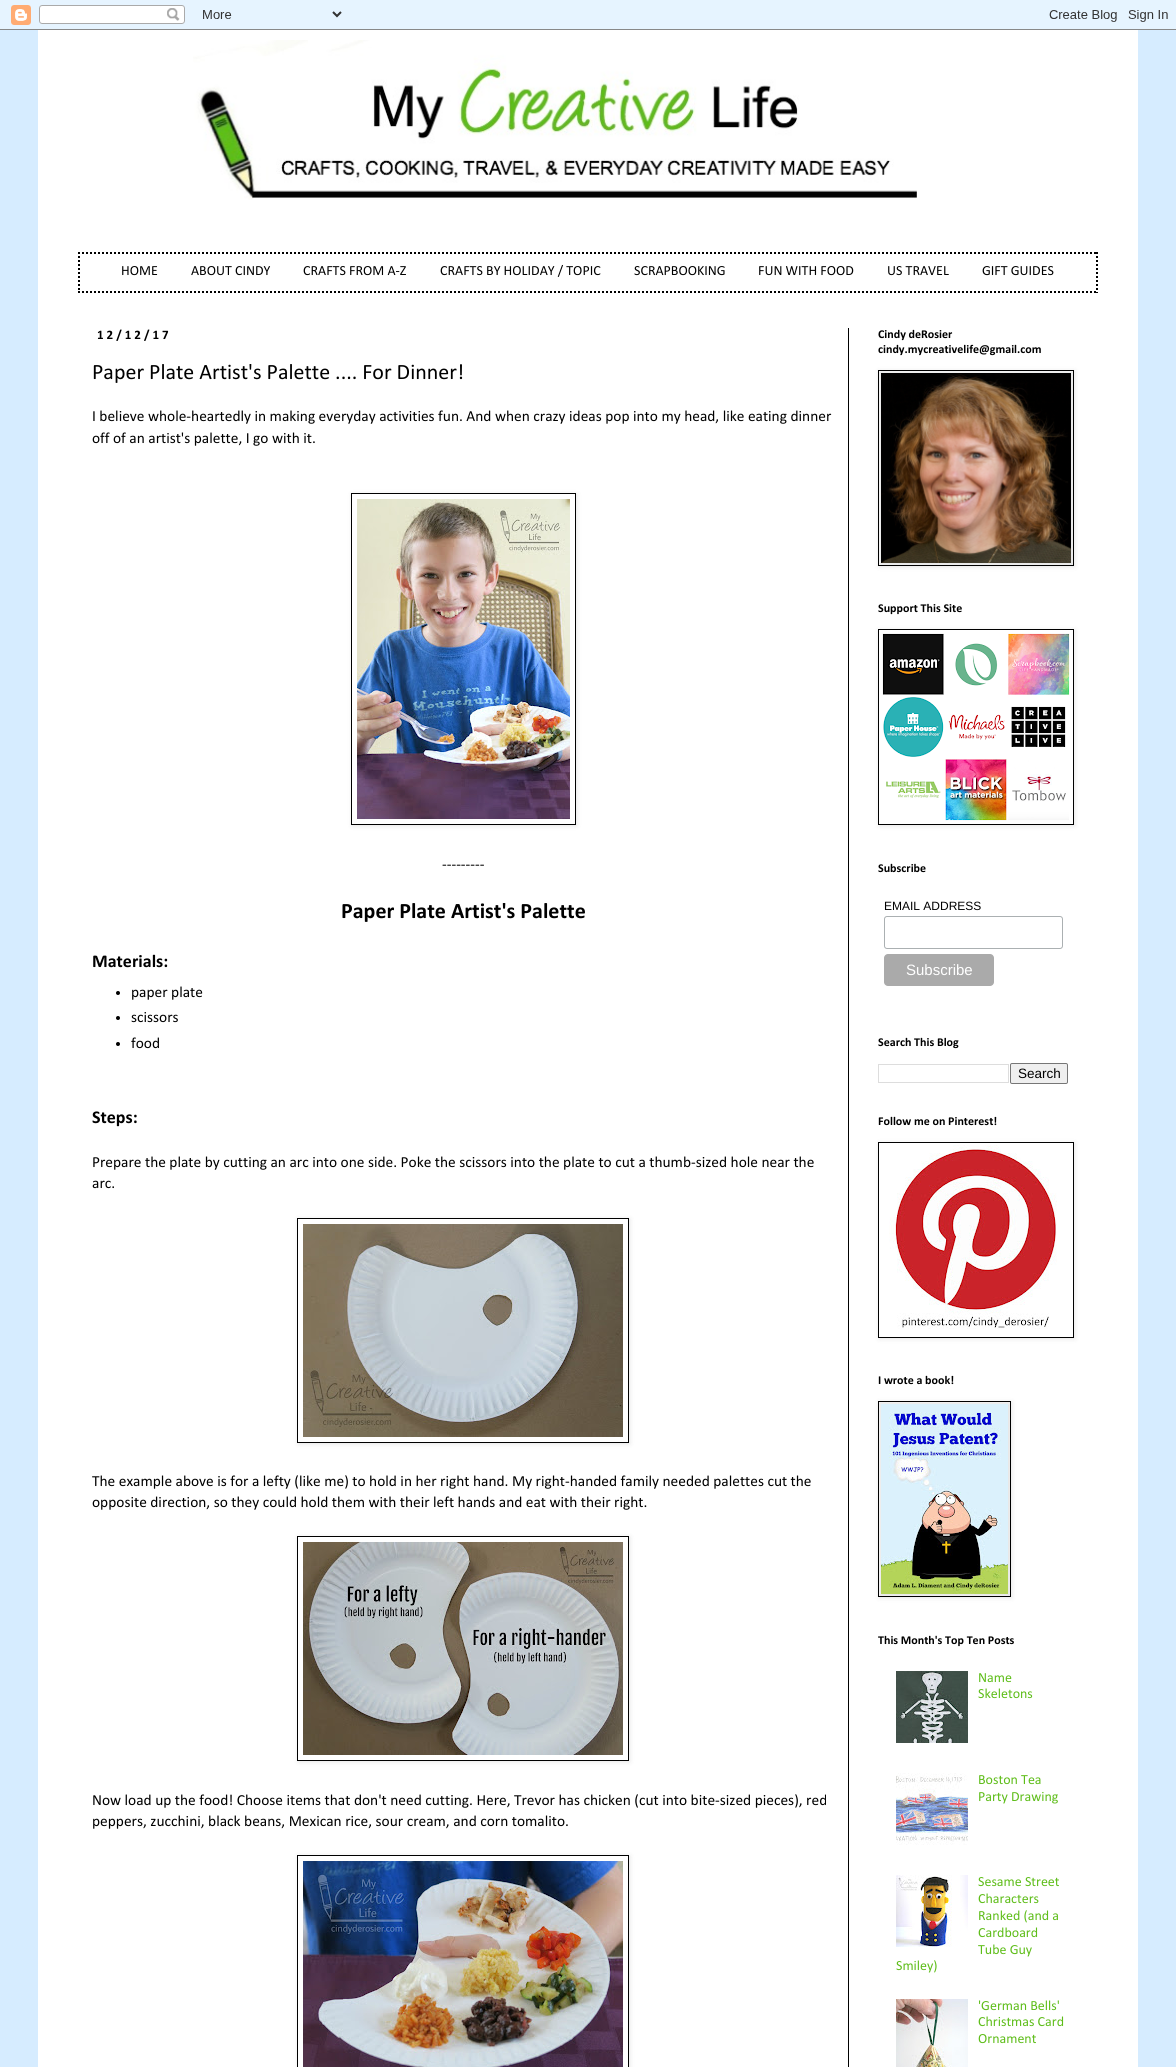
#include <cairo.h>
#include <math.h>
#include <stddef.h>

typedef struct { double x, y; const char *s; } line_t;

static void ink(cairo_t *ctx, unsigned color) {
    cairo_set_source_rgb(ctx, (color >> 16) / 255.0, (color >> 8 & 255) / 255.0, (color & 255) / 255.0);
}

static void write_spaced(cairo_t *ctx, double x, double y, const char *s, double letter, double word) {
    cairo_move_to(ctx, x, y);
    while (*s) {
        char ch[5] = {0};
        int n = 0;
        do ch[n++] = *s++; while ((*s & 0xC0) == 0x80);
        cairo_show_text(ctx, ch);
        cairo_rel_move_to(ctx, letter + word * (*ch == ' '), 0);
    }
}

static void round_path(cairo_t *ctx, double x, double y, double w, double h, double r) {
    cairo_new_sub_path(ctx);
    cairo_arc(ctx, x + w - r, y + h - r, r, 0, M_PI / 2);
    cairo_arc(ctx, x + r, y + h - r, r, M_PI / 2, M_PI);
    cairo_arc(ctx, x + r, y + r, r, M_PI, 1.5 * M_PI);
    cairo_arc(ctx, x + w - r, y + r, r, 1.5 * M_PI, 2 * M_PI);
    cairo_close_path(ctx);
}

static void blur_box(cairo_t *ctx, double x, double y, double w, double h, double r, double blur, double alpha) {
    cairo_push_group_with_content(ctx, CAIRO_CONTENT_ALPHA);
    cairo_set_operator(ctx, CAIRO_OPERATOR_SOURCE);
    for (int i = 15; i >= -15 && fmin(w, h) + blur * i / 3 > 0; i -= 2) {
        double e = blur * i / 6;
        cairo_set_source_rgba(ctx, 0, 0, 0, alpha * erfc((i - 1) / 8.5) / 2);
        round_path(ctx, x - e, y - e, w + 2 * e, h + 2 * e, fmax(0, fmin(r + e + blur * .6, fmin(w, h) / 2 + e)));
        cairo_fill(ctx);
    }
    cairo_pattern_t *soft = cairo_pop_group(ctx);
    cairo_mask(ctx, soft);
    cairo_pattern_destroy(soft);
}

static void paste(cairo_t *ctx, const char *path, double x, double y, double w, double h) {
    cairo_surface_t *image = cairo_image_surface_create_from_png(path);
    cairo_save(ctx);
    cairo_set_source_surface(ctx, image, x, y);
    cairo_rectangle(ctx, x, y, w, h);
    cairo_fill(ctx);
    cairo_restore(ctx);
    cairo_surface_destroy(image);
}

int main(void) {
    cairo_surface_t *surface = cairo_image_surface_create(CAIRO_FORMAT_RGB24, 1176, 2067);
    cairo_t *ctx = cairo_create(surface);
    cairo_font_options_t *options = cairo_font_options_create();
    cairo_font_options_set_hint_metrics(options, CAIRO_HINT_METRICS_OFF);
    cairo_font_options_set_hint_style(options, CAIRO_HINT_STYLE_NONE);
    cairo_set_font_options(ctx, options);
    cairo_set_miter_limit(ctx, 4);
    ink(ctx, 0xD6ECFF);
    cairo_paint(ctx);
    paste(ctx, "media/1.png", 0, 0, 1176, 30);
    ink(ctx, 0xFFFFFF);
    cairo_rectangle(ctx, 38, 30, 1100, 2037);
    cairo_fill(ctx);
    paste(ctx, "media/2.png", 193, 40, 724, 160);
    cairo_new_path(ctx);
    cairo_move_to(ctx, 78, 253);
    cairo_line_to(ctx, 1098, 253);
    ink(ctx, 0x000000);
    cairo_set_dash(ctx, (double[]){2, 2}, 2, 0);
    cairo_stroke(ctx);
    cairo_new_path(ctx);
    cairo_move_to(ctx, 1097, 252);
    cairo_line_to(ctx, 1097, 293);
    cairo_stroke(ctx);
    cairo_new_path(ctx);
    cairo_move_to(ctx, 78, 292);
    cairo_line_to(ctx, 1098, 292);
    cairo_stroke(ctx);
    cairo_new_path(ctx);
    cairo_move_to(ctx, 79, 252);
    cairo_line_to(ctx, 79, 293);
    cairo_stroke(ctx);
    cairo_select_font_face(ctx, "Calibri", CAIRO_FONT_SLANT_NORMAL, CAIRO_FONT_WEIGHT_NORMAL);
    cairo_set_font_size(ctx, 14);
    {
        static const line_t items[] = {
            {121, 275, "HOME"},
            {191, 275, "ABOUT CINDY"},
            {303, 275, "CRAFTS FROM A-Z"},
            {440, 275, "CRAFTS BY HOLIDAY / TOPIC"},
            {634, 275, "SCRAPBOOKING"},
            {758, 275, "FUN WITH FOOD"},
            {887, 275, "US TRAVEL"},
            {982, 275, "GIFT GUIDES"},
        };
        for (size_t i = 0; i < sizeof items / sizeof *items; i++) {
            cairo_move_to(ctx, items[i].x, items[i].y);
            cairo_show_text(ctx, items[i].s);
        }
    }
    cairo_rectangle(ctx, 848, 328, 1, 1739);
    cairo_fill(ctx);
    cairo_select_font_face(ctx, "Calibri", CAIRO_FONT_SLANT_NORMAL, CAIRO_FONT_WEIGHT_BOLD);
    cairo_set_font_size(ctx, 13);
    write_spaced(ctx, 97, 339, "12/12/17", 3, 0);
    cairo_select_font_face(ctx, "Calibri", CAIRO_FONT_SLANT_NORMAL, CAIRO_FONT_WEIGHT_NORMAL);
    cairo_set_font_size(ctx, 22);
    cairo_move_to(ctx, 92, 379);
    cairo_show_text(ctx, "Paper Plate Artist's Palette .... For Dinner!");
    cairo_set_font_size(ctx, 15.4);
    cairo_move_to(ctx, 92, 421);
    cairo_show_text(ctx, "I believe whole-heartedly in making everyday activities fun. And when crazy ideas pop into my head, like eating dinner");
    cairo_move_to(ctx, 92, 443);
    cairo_show_text(ctx, "off of an artist's palette, I go with it.");
    cairo_save(ctx);
    cairo_set_fill_rule(ctx, CAIRO_FILL_RULE_EVEN_ODD);
    cairo_new_path(ctx);
    cairo_move_to(ctx, 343, 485);
    cairo_line_to(ctx, 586, 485);
    cairo_line_to(ctx, 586, 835);
    cairo_line_to(ctx, 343, 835);
    cairo_close_path(ctx);
    cairo_move_to(ctx, 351, 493);
    cairo_line_to(ctx, 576, 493);
    cairo_line_to(ctx, 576, 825);
    cairo_line_to(ctx, 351, 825);
    cairo_close_path(ctx);
    cairo_clip(ctx);
    ink(ctx, 0x000000);
    blur_box(ctx, 352, 494, 225, 332, 0, 2.5, 0.1);
    cairo_restore(ctx);
    cairo_rectangle(ctx, 351.5, 493.5, 224, 331);
    cairo_set_line_width(ctx, 1);
    cairo_set_dash(ctx, NULL, 0, 0);
    cairo_stroke(ctx);
    paste(ctx, "media/3.png", 357, 499, 213, 320);
    cairo_move_to(ctx, 442, 869);
    cairo_show_text(ctx, "---------");
    cairo_select_font_face(ctx, "Calibri", CAIRO_FONT_SLANT_NORMAL, CAIRO_FONT_WEIGHT_BOLD);
    cairo_set_font_size(ctx, 22);
    cairo_move_to(ctx, 341, 918);
    cairo_show_text(ctx, "Paper Plate Artist's Palette");
    cairo_set_font_size(ctx, 18);
    cairo_move_to(ctx, 92, 967);
    cairo_show_text(ctx, "Materials:");
    cairo_new_path(ctx);
    cairo_arc(ctx, 118, 993, 2, 0, 2 * M_PI);
    cairo_fill(ctx);
    cairo_select_font_face(ctx, "Calibri", CAIRO_FONT_SLANT_NORMAL, CAIRO_FONT_WEIGHT_NORMAL);
    cairo_set_font_size(ctx, 15.4);
    cairo_move_to(ctx, 131, 997);
    cairo_show_text(ctx, "paper plate");
    cairo_new_path(ctx);
    cairo_arc(ctx, 118, 1018, 2, 0, 2 * M_PI);
    cairo_fill(ctx);
    cairo_move_to(ctx, 131, 1022);
    cairo_show_text(ctx, "scissors");
    cairo_new_path(ctx);
    cairo_arc(ctx, 118, 1044, 2, 0, 2 * M_PI);
    cairo_fill(ctx);
    cairo_move_to(ctx, 131, 1048);
    cairo_show_text(ctx, "food");
    cairo_select_font_face(ctx, "Calibri", CAIRO_FONT_SLANT_NORMAL, CAIRO_FONT_WEIGHT_BOLD);
    cairo_set_font_size(ctx, 18);
    cairo_move_to(ctx, 92, 1123);
    cairo_show_text(ctx, "Steps:");
    cairo_select_font_face(ctx, "Calibri", CAIRO_FONT_SLANT_NORMAL, CAIRO_FONT_WEIGHT_NORMAL);
    cairo_set_font_size(ctx, 15.4);
    cairo_move_to(ctx, 92, 1167);
    cairo_show_text(ctx, "Prepare the plate by cutting an arc into one side. Poke the scissors into the plate to cut a thumb-sized hole near the");
    cairo_move_to(ctx, 92, 1188);
    cairo_show_text(ctx, "arc.");
    cairo_save(ctx);
    cairo_set_fill_rule(ctx, CAIRO_FILL_RULE_EVEN_ODD);
    cairo_new_path(ctx);
    cairo_move_to(ctx, 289, 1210);
    cairo_line_to(ctx, 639, 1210);
    cairo_line_to(ctx, 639, 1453);
    cairo_line_to(ctx, 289, 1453);
    cairo_close_path(ctx);
    cairo_move_to(ctx, 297, 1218);
    cairo_line_to(ctx, 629, 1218);
    cairo_line_to(ctx, 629, 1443);
    cairo_line_to(ctx, 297, 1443);
    cairo_close_path(ctx);
    cairo_clip(ctx);
    ink(ctx, 0x000000);
    blur_box(ctx, 298, 1219, 332, 225, 0, 2.5, 0.1);
    cairo_restore(ctx);
    cairo_rectangle(ctx, 297.5, 1218.5, 331, 224);
    cairo_stroke(ctx);
    paste(ctx, "media/4.png", 303, 1224, 320, 213);
    cairo_move_to(ctx, 92, 1486);
    cairo_show_text(ctx, "The example above is for a lefty (like me) to hold in her right hand. My right-handed family needed palettes cut the");
    cairo_move_to(ctx, 92, 1507);
    cairo_show_text(ctx, "opposite direction, so they could hold them with their left hands and eat with their right.");
    cairo_save(ctx);
    cairo_set_fill_rule(ctx, CAIRO_FILL_RULE_EVEN_ODD);
    cairo_new_path(ctx);
    cairo_move_to(ctx, 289, 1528);
    cairo_line_to(ctx, 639, 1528);
    cairo_line_to(ctx, 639, 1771);
    cairo_line_to(ctx, 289, 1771);
    cairo_close_path(ctx);
    cairo_move_to(ctx, 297, 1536);
    cairo_line_to(ctx, 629, 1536);
    cairo_line_to(ctx, 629, 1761);
    cairo_line_to(ctx, 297, 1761);
    cairo_close_path(ctx);
    cairo_clip(ctx);
    ink(ctx, 0x000000);
    blur_box(ctx, 298, 1537, 332, 225, 0, 2.5, 0.1);
    cairo_restore(ctx);
    cairo_rectangle(ctx, 297.5, 1536.5, 331, 224);
    cairo_stroke(ctx);
    paste(ctx, "media/5.png", 303, 1542, 320, 213);
    cairo_move_to(ctx, 92, 1805);
    cairo_show_text(ctx, "Now load up the food! Choose items that don't need cutting. Here, Trevor has chicken (cut into bite-sized pieces), red");
    cairo_move_to(ctx, 92, 1826);
    cairo_show_text(ctx, "peppers, zucchini, black beans, Mexican rice, sour cream, and corn tomalito.");
    cairo_save(ctx);
    cairo_set_fill_rule(ctx, CAIRO_FILL_RULE_EVEN_ODD);
    cairo_new_path(ctx);
    cairo_move_to(ctx, 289, 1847);
    cairo_line_to(ctx, 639, 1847);
    cairo_line_to(ctx, 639, 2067);
    cairo_line_to(ctx, 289, 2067);
    cairo_close_path(ctx);
    cairo_move_to(ctx, 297, 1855);
    cairo_line_to(ctx, 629, 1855);
    cairo_line_to(ctx, 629, 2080);
    cairo_line_to(ctx, 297, 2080);
    cairo_close_path(ctx);
    cairo_clip(ctx);
    ink(ctx, 0x000000);
    blur_box(ctx, 298, 1856, 332, 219, 0, 2.5, 0.1);
    cairo_restore(ctx);
    cairo_rectangle(ctx, 297.5, 1855.5, 331, 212);
    cairo_stroke(ctx);
    paste(ctx, "media/6.png", 303, 1861, 320, 206);
    cairo_select_font_face(ctx, "Calibri", CAIRO_FONT_SLANT_NORMAL, CAIRO_FONT_WEIGHT_BOLD);
    cairo_set_font_size(ctx, 12);
    cairo_move_to(ctx, 878, 338);
    cairo_show_text(ctx, "Cindy deRosier");
    cairo_move_to(ctx, 878, 353);
    cairo_show_text(ctx, "cindy.mycreativelife@gmail.com");
    ink(ctx, 0x000000);
    blur_box(ctx, 879, 371, 196, 196, 0, 2.5, 0.1);
    cairo_rectangle(ctx, 878.5, 370.5, 195, 195);
    ink(ctx, 0x000000);
    cairo_stroke(ctx);
    paste(ctx, "media/7.png", 881, 373, 190, 190);
    cairo_move_to(ctx, 878, 612);
    cairo_show_text(ctx, "Support This Site");
    cairo_save(ctx);
    cairo_set_fill_rule(ctx, CAIRO_FILL_RULE_EVEN_ODD);
    cairo_new_path(ctx);
    cairo_move_to(ctx, 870, 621);
    cairo_line_to(ctx, 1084, 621);
    cairo_line_to(ctx, 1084, 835);
    cairo_line_to(ctx, 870, 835);
    cairo_close_path(ctx);
    cairo_move_to(ctx, 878, 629);
    cairo_line_to(ctx, 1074, 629);
    cairo_line_to(ctx, 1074, 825);
    cairo_line_to(ctx, 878, 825);
    cairo_close_path(ctx);
    cairo_clip(ctx);
    ink(ctx, 0x000000);
    blur_box(ctx, 879, 630, 196, 196, 0, 2.5, 0.1);
    cairo_restore(ctx);
    cairo_rectangle(ctx, 878.5, 629.5, 195, 195);
    cairo_stroke(ctx);
    paste(ctx, "media/8.png", 882, 633, 188, 188);
    cairo_move_to(ctx, 878, 872);
    cairo_show_text(ctx, "Subscribe");
    cairo_select_font_face(ctx, "Liberation Sans", CAIRO_FONT_SLANT_NORMAL, CAIRO_FONT_WEIGHT_NORMAL);
    cairo_move_to(ctx, 884, 910);
    cairo_show_text(ctx, "EMAIL ADDRESS");
    round_path(ctx, 884.5, 916.5, 178, 32, 2.5);
    ink(ctx, 0xABB0B2);
    cairo_stroke(ctx);
    ink(ctx, 0xAAAAAA);
    round_path(ctx, 884, 954, 110, 32, 4);
    cairo_fill(ctx);
    cairo_set_font_size(ctx, 15);
    ink(ctx, 0xFFFFFF);
    cairo_move_to(ctx, 906, 975);
    cairo_show_text(ctx, "Subscribe");
    cairo_select_font_face(ctx, "Calibri", CAIRO_FONT_SLANT_NORMAL, CAIRO_FONT_WEIGHT_BOLD);
    cairo_set_font_size(ctx, 12);
    ink(ctx, 0x000000);
    cairo_move_to(ctx, 878, 1046);
    cairo_show_text(ctx, "Search This Blog");
    cairo_rectangle(ctx, 878.5, 1064.5, 130, 18);
    ink(ctx, 0xDDDDDD);
    cairo_stroke(ctx);
    ink(ctx, 0xEFEFEF);
    round_path(ctx, 1010.5, 1063.5, 57, 20, 1.5);
    cairo_fill_preserve(ctx);
    ink(ctx, 0x767676);
    cairo_stroke(ctx);
    cairo_select_font_face(ctx, "Liberation Sans", CAIRO_FONT_SLANT_NORMAL, CAIRO_FONT_WEIGHT_NORMAL);
    cairo_set_font_size(ctx, 13.5);
    ink(ctx, 0x000000);
    cairo_move_to(ctx, 1018, 1078);
    cairo_show_text(ctx, "Search");
    cairo_select_font_face(ctx, "Calibri", CAIRO_FONT_SLANT_NORMAL, CAIRO_FONT_WEIGHT_BOLD);
    cairo_set_font_size(ctx, 12);
    cairo_move_to(ctx, 878, 1125);
    cairo_show_text(ctx, "Follow me on Pinterest!");
    cairo_save(ctx);
    cairo_set_fill_rule(ctx, CAIRO_FILL_RULE_EVEN_ODD);
    cairo_new_path(ctx);
    cairo_move_to(ctx, 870, 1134);
    cairo_line_to(ctx, 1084, 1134);
    cairo_line_to(ctx, 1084, 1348);
    cairo_line_to(ctx, 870, 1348);
    cairo_close_path(ctx);
    cairo_move_to(ctx, 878, 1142);
    cairo_line_to(ctx, 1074, 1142);
    cairo_line_to(ctx, 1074, 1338);
    cairo_line_to(ctx, 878, 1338);
    cairo_close_path(ctx);
    cairo_clip(ctx);
    ink(ctx, 0x000000);
    blur_box(ctx, 879, 1143, 196, 196, 0, 2.5, 0.1);
    cairo_restore(ctx);
    cairo_rectangle(ctx, 878.5, 1142.5, 195, 195);
    cairo_stroke(ctx);
    paste(ctx, "media/9.png", 889, 1145, 168, 184);
    cairo_move_to(ctx, 878, 1384);
    cairo_show_text(ctx, "I wrote a book!");
    ink(ctx, 0x000000);
    blur_box(ctx, 879, 1402, 133, 196, 0, 2.5, 0.1);
    cairo_rectangle(ctx, 878.5, 1401.5, 132, 195);
    ink(ctx, 0x000000);
    cairo_stroke(ctx);
    paste(ctx, "media/10.png", 881, 1404, 127, 190);
    cairo_move_to(ctx, 878, 1644);
    cairo_show_text(ctx, "This Month's Top Ten Posts");
    paste(ctx, "media/11.png", 896, 1671, 72, 72);
    cairo_select_font_face(ctx, "Calibri", CAIRO_FONT_SLANT_NORMAL, CAIRO_FONT_WEIGHT_NORMAL);
    cairo_set_font_size(ctx, 14);
    ink(ctx, 0x5EBD19);
    cairo_move_to(ctx, 978, 1682);
    cairo_show_text(ctx, "Name");
    cairo_move_to(ctx, 978, 1698);
    cairo_show_text(ctx, "Skeletons");
    paste(ctx, "media/12.png", 896, 1773, 72, 72);
    cairo_move_to(ctx, 978, 1784);
    cairo_show_text(ctx, "Boston Tea");
    cairo_move_to(ctx, 978, 1801);
    cairo_show_text(ctx, "Party Drawing");
    paste(ctx, "media/13.png", 896, 1875, 72, 72);
    {
        static const line_t items[] = {
            {978, 1886, "Sesame Street"},
            {978, 1903, "Characters"},
            {978, 1920, "Ranked (and a"},
            {978, 1937, "Cardboard"},
            {978, 1954, "Tube Guy"},
            {896, 1970, "Smiley)"},
        };
        for (size_t i = 0; i < sizeof items / sizeof *items; i++) {
            cairo_move_to(ctx, items[i].x, items[i].y);
            cairo_show_text(ctx, items[i].s);
        }
    }
    paste(ctx, "media/14.png", 896, 1999, 72, 68);
    {
        static const line_t items[] = {
            {978, 2010, "'German Bells'"},
            {978, 2026, "Christmas Card"},
            {978, 2043, "Ornament"},
        };
        for (size_t i = 0; i < sizeof items / sizeof *items; i++) {
            cairo_move_to(ctx, items[i].x, items[i].y);
            cairo_show_text(ctx, items[i].s);
        }
    }
    cairo_surface_write_to_png(surface, "image.png");
    cairo_font_options_destroy(options);
    cairo_destroy(ctx);
    cairo_surface_destroy(surface);
    return 0;
}
